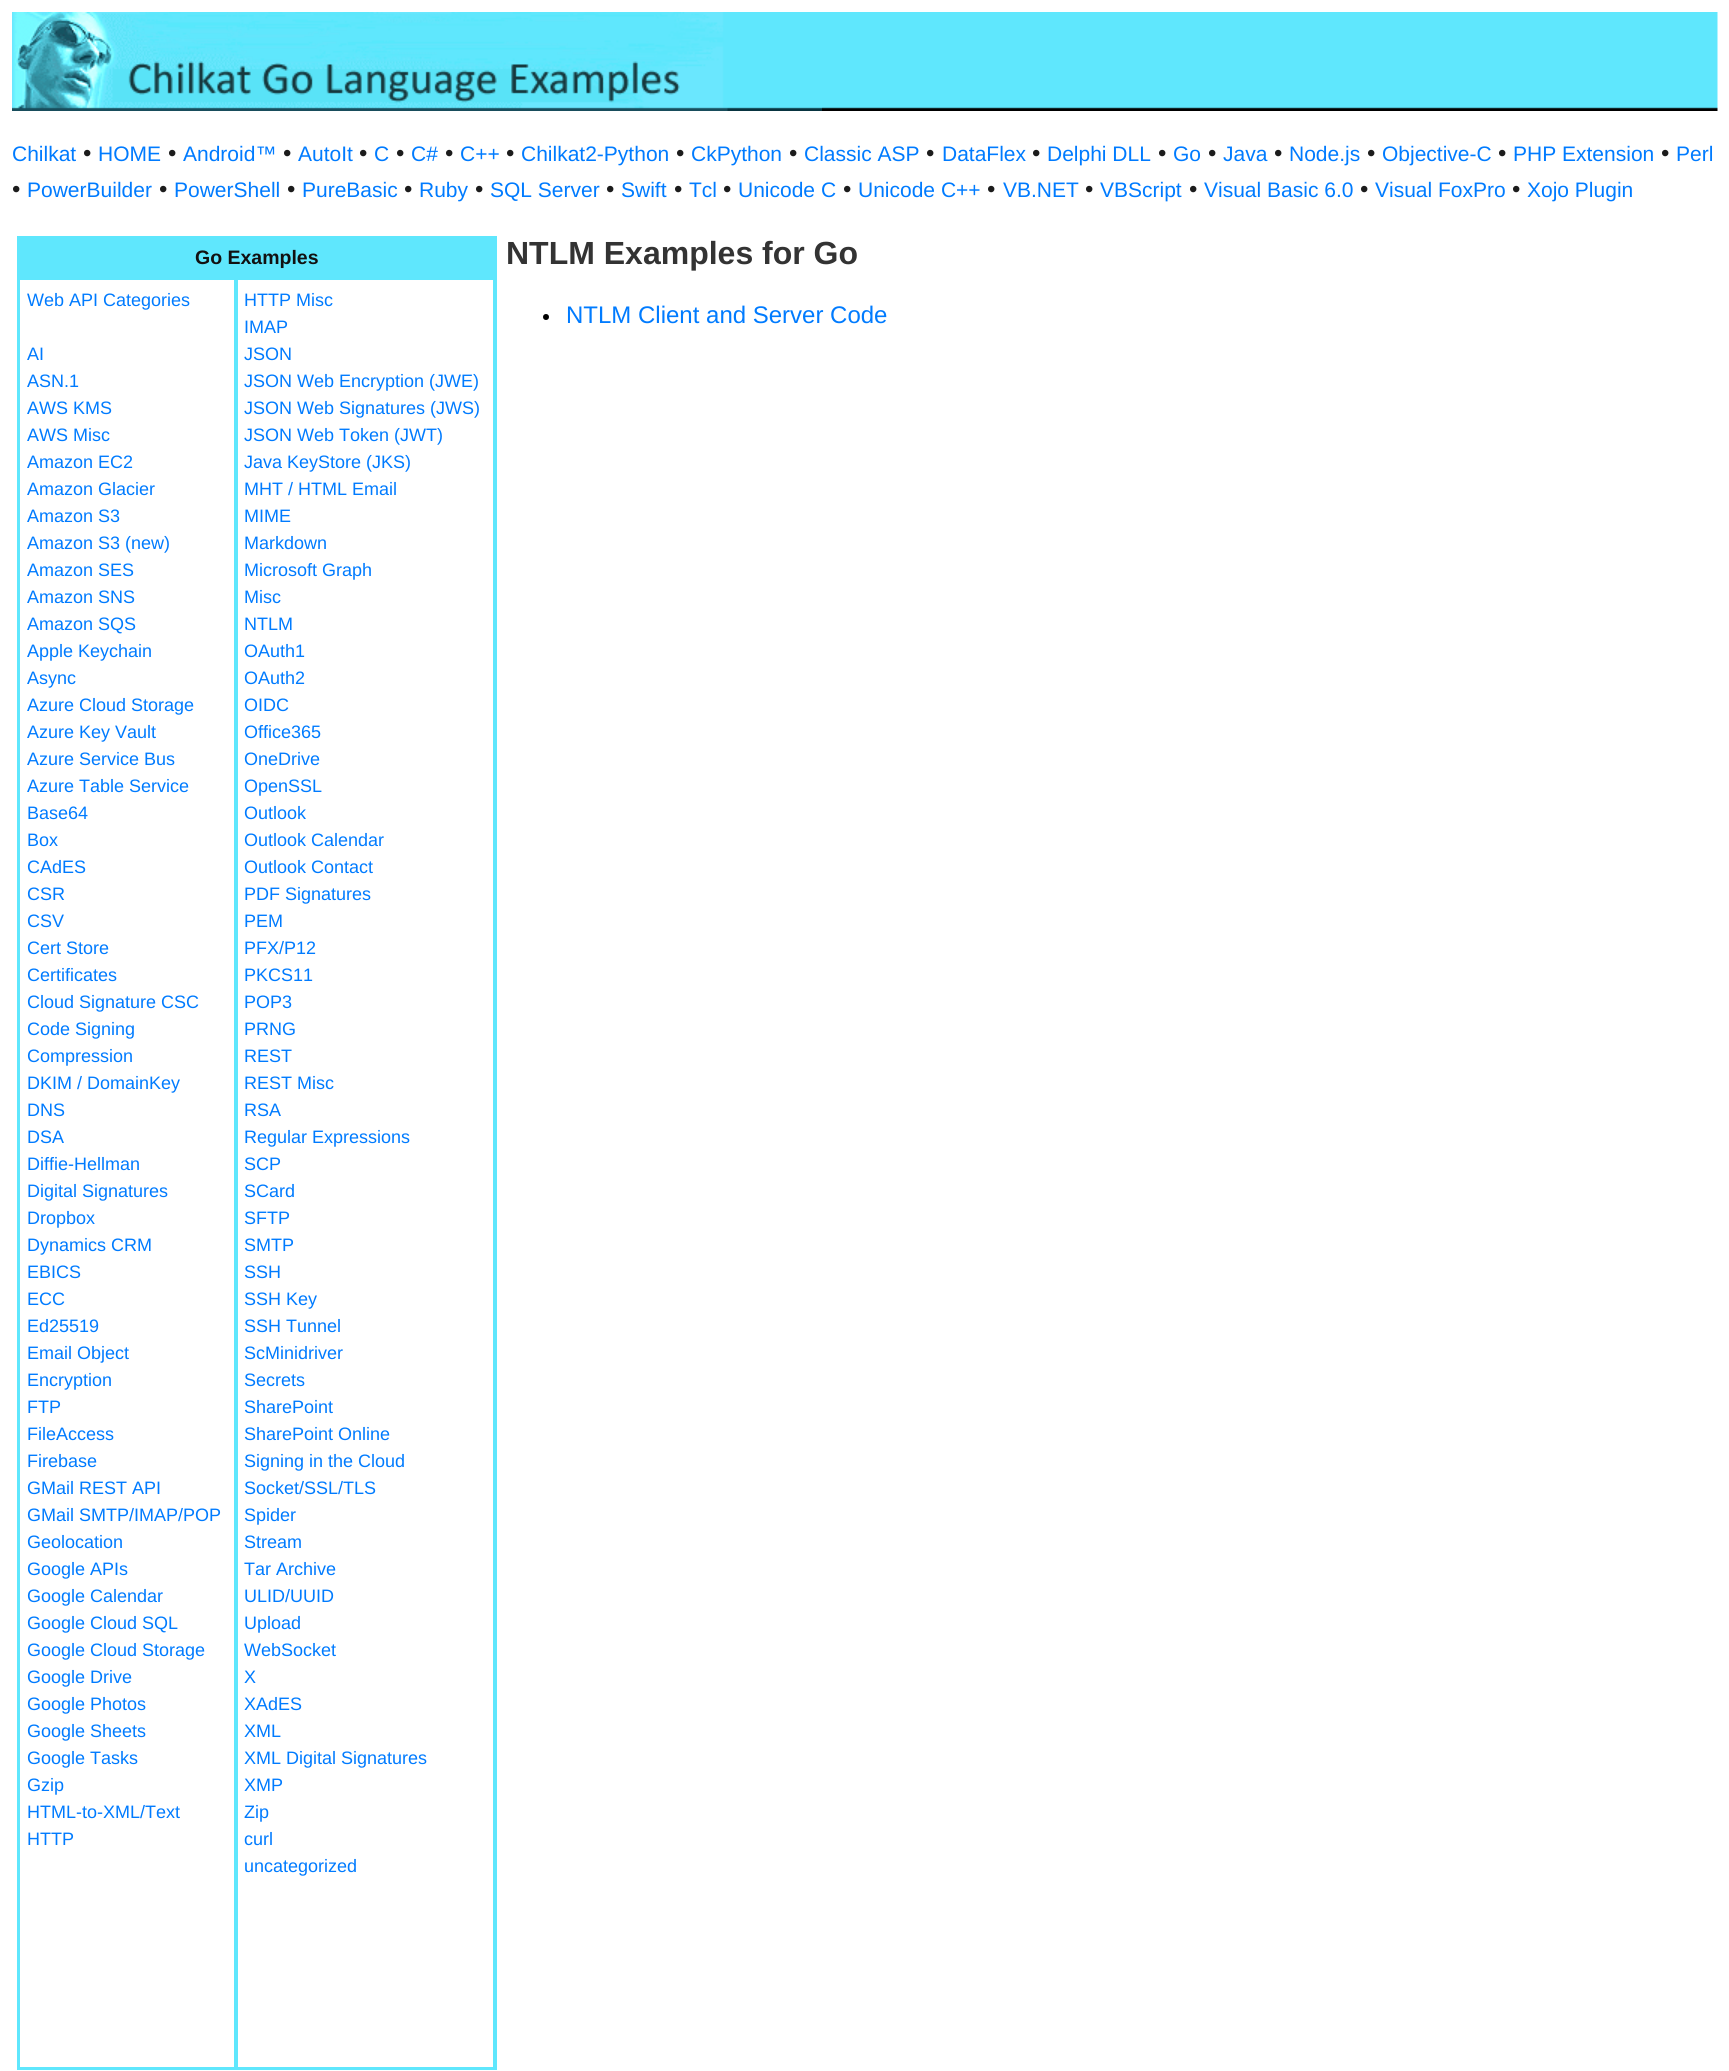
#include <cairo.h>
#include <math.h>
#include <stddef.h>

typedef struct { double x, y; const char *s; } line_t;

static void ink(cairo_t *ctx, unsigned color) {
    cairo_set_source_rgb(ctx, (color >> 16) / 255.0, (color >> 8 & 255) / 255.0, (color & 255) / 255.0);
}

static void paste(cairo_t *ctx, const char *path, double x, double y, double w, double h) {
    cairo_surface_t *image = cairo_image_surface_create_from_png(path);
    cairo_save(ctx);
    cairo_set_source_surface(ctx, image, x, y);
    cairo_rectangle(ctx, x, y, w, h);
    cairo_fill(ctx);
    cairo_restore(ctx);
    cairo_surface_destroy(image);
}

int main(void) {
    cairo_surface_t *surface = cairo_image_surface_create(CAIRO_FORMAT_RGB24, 1729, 2071);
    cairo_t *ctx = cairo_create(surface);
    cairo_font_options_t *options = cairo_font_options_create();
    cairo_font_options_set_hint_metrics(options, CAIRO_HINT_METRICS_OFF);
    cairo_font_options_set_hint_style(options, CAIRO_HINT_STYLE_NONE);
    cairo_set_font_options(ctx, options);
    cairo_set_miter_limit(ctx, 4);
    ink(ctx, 0xFFFFFF);
    cairo_paint(ctx);
    paste(ctx, "media/1.png", 822, 12, 896, 99);
    paste(ctx, "media/2.png", 12, 12, 810, 99);
    cairo_select_font_face(ctx, "Liberation Sans", CAIRO_FONT_SLANT_NORMAL, CAIRO_FONT_WEIGHT_NORMAL);
    cairo_set_font_size(ctx, 21);
    ink(ctx, 0x007BFF);
    cairo_move_to(ctx, 12, 161);
    cairo_show_text(ctx, "Chilkat");
    cairo_set_font_size(ctx, 24);
    ink(ctx, 0x1C1C1C);
    cairo_move_to(ctx, 83, 161);
    cairo_show_text(ctx, "•");
    cairo_set_font_size(ctx, 21);
    ink(ctx, 0x007BFF);
    cairo_move_to(ctx, 98, 161);
    cairo_show_text(ctx, "HOME");
    cairo_set_font_size(ctx, 24);
    ink(ctx, 0x1C1C1C);
    cairo_move_to(ctx, 168, 161);
    cairo_show_text(ctx, "•");
    cairo_set_font_size(ctx, 21);
    ink(ctx, 0x007BFF);
    cairo_move_to(ctx, 183, 161);
    cairo_show_text(ctx, "Android™");
    cairo_set_font_size(ctx, 24);
    ink(ctx, 0x1C1C1C);
    cairo_move_to(ctx, 283, 161);
    cairo_show_text(ctx, "•");
    cairo_set_font_size(ctx, 21);
    ink(ctx, 0x007BFF);
    cairo_move_to(ctx, 298, 161);
    cairo_show_text(ctx, "AutoIt");
    cairo_set_font_size(ctx, 24);
    ink(ctx, 0x1C1C1C);
    cairo_move_to(ctx, 359, 161);
    cairo_show_text(ctx, "•");
    cairo_set_font_size(ctx, 21);
    ink(ctx, 0x007BFF);
    cairo_move_to(ctx, 374, 161);
    cairo_show_text(ctx, "C");
    cairo_set_font_size(ctx, 24);
    ink(ctx, 0x1C1C1C);
    cairo_move_to(ctx, 396, 161);
    cairo_show_text(ctx, "•");
    cairo_set_font_size(ctx, 21);
    ink(ctx, 0x007BFF);
    cairo_move_to(ctx, 411, 161);
    cairo_show_text(ctx, "C#");
    cairo_set_font_size(ctx, 24);
    ink(ctx, 0x1C1C1C);
    cairo_move_to(ctx, 445, 161);
    cairo_show_text(ctx, "•");
    cairo_set_font_size(ctx, 21);
    ink(ctx, 0x007BFF);
    cairo_move_to(ctx, 460, 161);
    cairo_show_text(ctx, "C++");
    cairo_set_font_size(ctx, 24);
    ink(ctx, 0x1C1C1C);
    cairo_move_to(ctx, 506, 161);
    cairo_show_text(ctx, "•");
    cairo_set_font_size(ctx, 21);
    ink(ctx, 0x007BFF);
    cairo_move_to(ctx, 521, 161);
    cairo_show_text(ctx, "Chilkat2-Python");
    cairo_set_font_size(ctx, 24);
    ink(ctx, 0x1C1C1C);
    cairo_move_to(ctx, 676, 161);
    cairo_show_text(ctx, "•");
    cairo_set_font_size(ctx, 21);
    ink(ctx, 0x007BFF);
    cairo_move_to(ctx, 691, 161);
    cairo_show_text(ctx, "CkPython");
    cairo_set_font_size(ctx, 24);
    ink(ctx, 0x1C1C1C);
    cairo_move_to(ctx, 789, 161);
    cairo_show_text(ctx, "•");
    cairo_set_font_size(ctx, 21);
    ink(ctx, 0x007BFF);
    cairo_move_to(ctx, 804, 161);
    cairo_show_text(ctx, "Classic ASP");
    cairo_set_font_size(ctx, 24);
    ink(ctx, 0x1C1C1C);
    cairo_move_to(ctx, 926, 161);
    cairo_show_text(ctx, "•");
    cairo_set_font_size(ctx, 21);
    ink(ctx, 0x007BFF);
    cairo_move_to(ctx, 942, 161);
    cairo_show_text(ctx, "DataFlex");
    cairo_set_font_size(ctx, 24);
    ink(ctx, 0x1C1C1C);
    cairo_move_to(ctx, 1032, 161);
    cairo_show_text(ctx, "•");
    cairo_set_font_size(ctx, 21);
    ink(ctx, 0x007BFF);
    cairo_move_to(ctx, 1047, 161);
    cairo_show_text(ctx, "Delphi DLL");
    cairo_set_font_size(ctx, 24);
    ink(ctx, 0x1C1C1C);
    cairo_move_to(ctx, 1158, 161);
    cairo_show_text(ctx, "•");
    cairo_set_font_size(ctx, 21);
    ink(ctx, 0x007BFF);
    cairo_move_to(ctx, 1173, 161);
    cairo_show_text(ctx, "Go");
    cairo_set_font_size(ctx, 24);
    ink(ctx, 0x1C1C1C);
    cairo_move_to(ctx, 1208, 161);
    cairo_show_text(ctx, "•");
    cairo_set_font_size(ctx, 21);
    ink(ctx, 0x007BFF);
    cairo_move_to(ctx, 1223, 161);
    cairo_show_text(ctx, "Java");
    cairo_set_font_size(ctx, 24);
    ink(ctx, 0x1C1C1C);
    cairo_move_to(ctx, 1274, 161);
    cairo_show_text(ctx, "•");
    cairo_set_font_size(ctx, 21);
    ink(ctx, 0x007BFF);
    cairo_move_to(ctx, 1289, 161);
    cairo_show_text(ctx, "Node.js");
    cairo_set_font_size(ctx, 24);
    ink(ctx, 0x1C1C1C);
    cairo_move_to(ctx, 1367, 161);
    cairo_show_text(ctx, "•");
    cairo_set_font_size(ctx, 21);
    ink(ctx, 0x007BFF);
    cairo_move_to(ctx, 1382, 161);
    cairo_show_text(ctx, "Objective-C");
    cairo_set_font_size(ctx, 24);
    ink(ctx, 0x1C1C1C);
    cairo_move_to(ctx, 1498, 161);
    cairo_show_text(ctx, "•");
    cairo_set_font_size(ctx, 21);
    ink(ctx, 0x007BFF);
    cairo_move_to(ctx, 1513, 161);
    cairo_show_text(ctx, "PHP Extension");
    cairo_set_font_size(ctx, 24);
    ink(ctx, 0x1C1C1C);
    cairo_move_to(ctx, 1661, 161);
    cairo_show_text(ctx, "•");
    cairo_set_font_size(ctx, 21);
    ink(ctx, 0x007BFF);
    cairo_move_to(ctx, 1676, 161);
    cairo_show_text(ctx, "Perl");
    cairo_set_font_size(ctx, 24);
    ink(ctx, 0x1C1C1C);
    cairo_move_to(ctx, 12, 197);
    cairo_show_text(ctx, "•");
    cairo_set_font_size(ctx, 21);
    ink(ctx, 0x007BFF);
    cairo_move_to(ctx, 27, 197);
    cairo_show_text(ctx, "PowerBuilder");
    cairo_set_font_size(ctx, 24);
    ink(ctx, 0x1C1C1C);
    cairo_move_to(ctx, 159, 197);
    cairo_show_text(ctx, "•");
    cairo_set_font_size(ctx, 21);
    ink(ctx, 0x007BFF);
    cairo_move_to(ctx, 174, 197);
    cairo_show_text(ctx, "PowerShell");
    cairo_set_font_size(ctx, 24);
    ink(ctx, 0x1C1C1C);
    cairo_move_to(ctx, 287, 197);
    cairo_show_text(ctx, "•");
    cairo_set_font_size(ctx, 21);
    ink(ctx, 0x007BFF);
    cairo_move_to(ctx, 302, 197);
    cairo_show_text(ctx, "PureBasic");
    cairo_set_font_size(ctx, 24);
    ink(ctx, 0x1C1C1C);
    cairo_move_to(ctx, 404, 197);
    cairo_show_text(ctx, "•");
    cairo_set_font_size(ctx, 21);
    ink(ctx, 0x007BFF);
    cairo_move_to(ctx, 419, 197);
    cairo_show_text(ctx, "Ruby");
    cairo_set_font_size(ctx, 24);
    ink(ctx, 0x1C1C1C);
    cairo_move_to(ctx, 475, 197);
    cairo_show_text(ctx, "•");
    cairo_set_font_size(ctx, 21);
    ink(ctx, 0x007BFF);
    cairo_move_to(ctx, 490, 197);
    cairo_show_text(ctx, "SQL Server");
    cairo_set_font_size(ctx, 24);
    ink(ctx, 0x1C1C1C);
    cairo_move_to(ctx, 606, 197);
    cairo_show_text(ctx, "•");
    cairo_set_font_size(ctx, 21);
    ink(ctx, 0x007BFF);
    cairo_move_to(ctx, 621, 197);
    cairo_show_text(ctx, "Swift");
    cairo_set_font_size(ctx, 24);
    ink(ctx, 0x1C1C1C);
    cairo_move_to(ctx, 674, 197);
    cairo_show_text(ctx, "•");
    cairo_set_font_size(ctx, 21);
    ink(ctx, 0x007BFF);
    cairo_move_to(ctx, 689, 197);
    cairo_show_text(ctx, "Tcl");
    cairo_set_font_size(ctx, 24);
    ink(ctx, 0x1C1C1C);
    cairo_move_to(ctx, 723, 197);
    cairo_show_text(ctx, "•");
    cairo_set_font_size(ctx, 21);
    ink(ctx, 0x007BFF);
    cairo_move_to(ctx, 738, 197);
    cairo_show_text(ctx, "Unicode C");
    cairo_set_font_size(ctx, 24);
    ink(ctx, 0x1C1C1C);
    cairo_move_to(ctx, 843, 197);
    cairo_show_text(ctx, "•");
    cairo_set_font_size(ctx, 21);
    ink(ctx, 0x007BFF);
    cairo_move_to(ctx, 858, 197);
    cairo_show_text(ctx, "Unicode C++");
    cairo_set_font_size(ctx, 24);
    ink(ctx, 0x1C1C1C);
    cairo_move_to(ctx, 987, 197);
    cairo_show_text(ctx, "•");
    cairo_set_font_size(ctx, 21);
    ink(ctx, 0x007BFF);
    cairo_move_to(ctx, 1003, 197);
    cairo_show_text(ctx, "VB.NET");
    cairo_set_font_size(ctx, 24);
    ink(ctx, 0x1C1C1C);
    cairo_move_to(ctx, 1085, 197);
    cairo_show_text(ctx, "•");
    cairo_set_font_size(ctx, 21);
    ink(ctx, 0x007BFF);
    cairo_move_to(ctx, 1100, 197);
    cairo_show_text(ctx, "VBScript");
    cairo_set_font_size(ctx, 24);
    ink(ctx, 0x1C1C1C);
    cairo_move_to(ctx, 1189, 197);
    cairo_show_text(ctx, "•");
    cairo_set_font_size(ctx, 21);
    ink(ctx, 0x007BFF);
    cairo_move_to(ctx, 1204, 197);
    cairo_show_text(ctx, "Visual Basic 6.0");
    cairo_set_font_size(ctx, 24);
    ink(ctx, 0x1C1C1C);
    cairo_move_to(ctx, 1360, 197);
    cairo_show_text(ctx, "•");
    cairo_set_font_size(ctx, 21);
    ink(ctx, 0x007BFF);
    cairo_move_to(ctx, 1375, 197);
    cairo_show_text(ctx, "Visual FoxPro");
    cairo_set_font_size(ctx, 24);
    ink(ctx, 0x1C1C1C);
    cairo_move_to(ctx, 1512, 197);
    cairo_show_text(ctx, "•");
    cairo_set_font_size(ctx, 21);
    ink(ctx, 0x007BFF);
    cairo_move_to(ctx, 1527, 197);
    cairo_show_text(ctx, "Xojo Plugin");
    cairo_rectangle(ctx, 18, 237, 478, 1832);
    ink(ctx, 0x5FE7FD);
    cairo_stroke(ctx);
    cairo_rectangle(ctx, 19, 238, 476, 40);
    cairo_fill(ctx);
    cairo_select_font_face(ctx, "Liberation Sans", CAIRO_FONT_SLANT_NORMAL, CAIRO_FONT_WEIGHT_BOLD);
    cairo_set_font_size(ctx, 19.5);
    ink(ctx, 0x111111);
    cairo_move_to(ctx, 195, 264);
    cairo_show_text(ctx, "Go Examples");
    cairo_rectangle(ctx, 19, 279, 216, 1789);
    ink(ctx, 0x5FE7FD);
    cairo_stroke(ctx);
    cairo_select_font_face(ctx, "Liberation Sans", CAIRO_FONT_SLANT_NORMAL, CAIRO_FONT_WEIGHT_NORMAL);
    cairo_set_font_size(ctx, 18);
    ink(ctx, 0x007BFF);
    {
        static const line_t items[] = {
            {27, 306, "Web API Categories"},
            {27, 360, "AI"},
            {27, 387, "ASN.1"},
            {27, 414, "AWS KMS"},
            {27, 441, "AWS Misc"},
            {27, 468, "Amazon EC2"},
            {27, 495, "Amazon Glacier"},
            {27, 522, "Amazon S3"},
            {27, 549, "Amazon S3 (new)"},
            {27, 576, "Amazon SES"},
            {27, 603, "Amazon SNS"},
            {27, 630, "Amazon SQS"},
            {27, 657, "Apple Keychain"},
            {27, 684, "Async"},
            {27, 711, "Azure Cloud Storage"},
            {27, 738, "Azure Key Vault"},
            {27, 765, "Azure Service Bus"},
            {27, 792, "Azure Table Service"},
            {27, 819, "Base64"},
            {27, 846, "Box"},
            {27, 873, "CAdES"},
            {27, 900, "CSR"},
            {27, 927, "CSV"},
            {27, 954, "Cert Store"},
            {27, 981, "Certificates"},
            {27, 1008, "Cloud Signature CSC"},
            {27, 1035, "Code Signing"},
            {27, 1062, "Compression"},
            {27, 1089, "DKIM / DomainKey"},
            {27, 1116, "DNS"},
            {27, 1143, "DSA"},
            {27, 1170, "Diffie-Hellman"},
            {27, 1197, "Digital Signatures"},
            {27, 1224, "Dropbox"},
            {27, 1251, "Dynamics CRM"},
            {27, 1278, "EBICS"},
            {27, 1305, "ECC"},
            {27, 1332, "Ed25519"},
            {27, 1359, "Email Object"},
            {27, 1386, "Encryption"},
            {27, 1413, "FTP"},
            {27, 1440, "FileAccess"},
            {27, 1467, "Firebase"},
            {27, 1494, "GMail REST API"},
            {27, 1521, "GMail SMTP/IMAP/POP"},
            {27, 1548, "Geolocation"},
            {27, 1575, "Google APIs"},
            {27, 1602, "Google Calendar"},
            {27, 1629, "Google Cloud SQL"},
            {27, 1656, "Google Cloud Storage"},
            {27, 1683, "Google Drive"},
            {27, 1710, "Google Photos"},
            {27, 1737, "Google Sheets"},
            {27, 1764, "Google Tasks"},
            {27, 1791, "Gzip"},
            {27, 1818, "HTML-to-XML/Text"},
            {27, 1845, "HTTP"},
        };
        for (size_t i = 0; i < sizeof items / sizeof *items; i++) {
            cairo_move_to(ctx, items[i].x, items[i].y);
            cairo_show_text(ctx, items[i].s);
        }
    }
    cairo_rectangle(ctx, 237, 279, 257, 1789);
    ink(ctx, 0x5FE7FD);
    cairo_stroke(ctx);
    ink(ctx, 0x007BFF);
    {
        static const line_t items[] = {
            {244, 306, "HTTP Misc"},
            {244, 333, "IMAP"},
            {244, 360, "JSON"},
            {244, 387, "JSON Web Encryption (JWE)"},
            {244, 414, "JSON Web Signatures (JWS)"},
            {244, 441, "JSON Web Token (JWT)"},
            {244, 468, "Java KeyStore (JKS)"},
            {244, 495, "MHT / HTML Email"},
            {244, 522, "MIME"},
            {244, 549, "Markdown"},
            {244, 576, "Microsoft Graph"},
            {244, 603, "Misc"},
            {244, 630, "NTLM"},
            {244, 657, "OAuth1"},
            {244, 684, "OAuth2"},
            {244, 711, "OIDC"},
            {244, 738, "Office365"},
            {244, 765, "OneDrive"},
            {244, 792, "OpenSSL"},
            {244, 819, "Outlook"},
            {244, 846, "Outlook Calendar"},
            {244, 873, "Outlook Contact"},
            {244, 900, "PDF Signatures"},
            {244, 927, "PEM"},
            {244, 954, "PFX/P12"},
            {244, 981, "PKCS11"},
            {244, 1008, "POP3"},
            {244, 1035, "PRNG"},
            {244, 1062, "REST"},
            {244, 1089, "REST Misc"},
            {244, 1116, "RSA"},
            {244, 1143, "Regular Expressions"},
            {244, 1170, "SCP"},
            {244, 1197, "SCard"},
            {244, 1224, "SFTP"},
            {244, 1251, "SMTP"},
            {244, 1278, "SSH"},
            {244, 1305, "SSH Key"},
            {244, 1332, "SSH Tunnel"},
            {244, 1359, "ScMinidriver"},
            {244, 1386, "Secrets"},
            {244, 1413, "SharePoint"},
            {244, 1440, "SharePoint Online"},
            {244, 1467, "Signing in the Cloud"},
            {244, 1494, "Socket/SSL/TLS"},
            {244, 1521, "Spider"},
            {244, 1548, "Stream"},
            {244, 1575, "Tar Archive"},
            {244, 1602, "ULID/UUID"},
            {244, 1629, "Upload"},
            {244, 1656, "WebSocket"},
            {244, 1683, "X"},
            {244, 1710, "XAdES"},
            {244, 1737, "XML"},
            {244, 1764, "XML Digital Signatures"},
            {244, 1791, "XMP"},
            {244, 1818, "Zip"},
            {244, 1845, "curl"},
            {244, 1872, "uncategorized"},
        };
        for (size_t i = 0; i < sizeof items / sizeof *items; i++) {
            cairo_move_to(ctx, items[i].x, items[i].y);
            cairo_show_text(ctx, items[i].s);
        }
    }
    cairo_select_font_face(ctx, "Liberation Sans", CAIRO_FONT_SLANT_NORMAL, CAIRO_FONT_WEIGHT_BOLD);
    cairo_set_font_size(ctx, 32);
    ink(ctx, 0x333333);
    cairo_move_to(ctx, 506, 264);
    cairo_show_text(ctx, "NTLM Examples for Go");
    ink(ctx, 0x000000);
    cairo_new_path(ctx);
    cairo_arc(ctx, 546, 317, 3, 0, 2 * M_PI);
    cairo_fill(ctx);
    cairo_select_font_face(ctx, "Liberation Sans", CAIRO_FONT_SLANT_NORMAL, CAIRO_FONT_WEIGHT_NORMAL);
    cairo_set_font_size(ctx, 24);
    ink(ctx, 0x007BFF);
    cairo_move_to(ctx, 566, 323);
    cairo_show_text(ctx, "NTLM Client and Server Code");
    cairo_surface_write_to_png(surface, "image.png");
    cairo_font_options_destroy(options);
    cairo_destroy(ctx);
    cairo_surface_destroy(surface);
    return 0;
}
